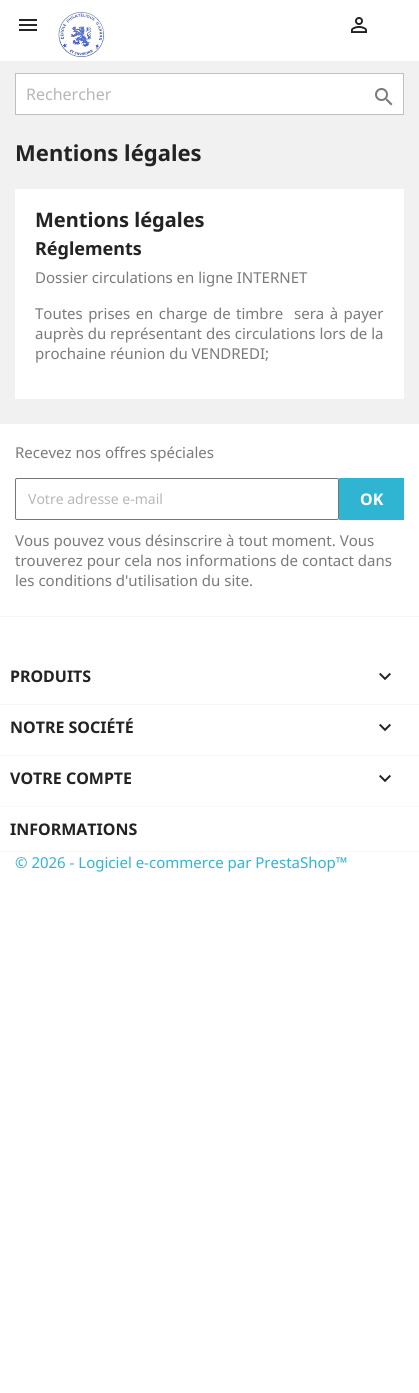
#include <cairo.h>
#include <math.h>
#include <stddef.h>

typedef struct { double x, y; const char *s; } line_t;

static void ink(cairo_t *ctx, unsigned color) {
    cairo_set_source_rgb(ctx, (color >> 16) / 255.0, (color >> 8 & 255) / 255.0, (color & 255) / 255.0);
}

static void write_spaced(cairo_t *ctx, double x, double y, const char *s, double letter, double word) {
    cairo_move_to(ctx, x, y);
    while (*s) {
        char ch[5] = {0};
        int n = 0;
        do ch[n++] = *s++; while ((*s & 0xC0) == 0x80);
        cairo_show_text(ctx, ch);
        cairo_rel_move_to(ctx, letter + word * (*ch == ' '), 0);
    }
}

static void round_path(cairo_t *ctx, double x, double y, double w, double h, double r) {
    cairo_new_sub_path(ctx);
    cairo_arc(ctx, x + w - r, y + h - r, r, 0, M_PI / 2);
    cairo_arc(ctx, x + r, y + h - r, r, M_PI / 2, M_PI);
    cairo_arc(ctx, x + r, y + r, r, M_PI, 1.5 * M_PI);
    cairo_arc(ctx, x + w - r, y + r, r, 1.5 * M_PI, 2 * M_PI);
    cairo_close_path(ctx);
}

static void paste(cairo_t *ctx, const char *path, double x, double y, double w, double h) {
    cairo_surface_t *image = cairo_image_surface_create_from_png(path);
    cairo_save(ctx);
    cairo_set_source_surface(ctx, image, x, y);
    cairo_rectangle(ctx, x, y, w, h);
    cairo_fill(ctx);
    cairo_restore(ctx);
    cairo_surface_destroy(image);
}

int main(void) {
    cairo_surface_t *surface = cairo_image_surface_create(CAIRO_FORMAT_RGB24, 419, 1393);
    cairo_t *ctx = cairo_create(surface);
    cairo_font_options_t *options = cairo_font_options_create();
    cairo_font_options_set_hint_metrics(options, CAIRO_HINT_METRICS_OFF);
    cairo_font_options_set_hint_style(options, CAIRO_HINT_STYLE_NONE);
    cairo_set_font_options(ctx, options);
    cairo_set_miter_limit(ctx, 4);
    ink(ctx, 0xFFFFFF);
    cairo_paint(ctx);
    ink(ctx, 0xF1F1F1);
    cairo_rectangle(ctx, 0, 61, 419, 363);
    cairo_fill(ctx);
    paste(ctx, "media/1.png", 19, 19, 18, 12);
    paste(ctx, "media/2.png", 58, 12, 47, 45);
    paste(ctx, "media/3.png", 351, 17, 16, 16);
    ink(ctx, 0xFFFFFF);
    cairo_rectangle(ctx, 15.5, 73.5, 388, 41);
    cairo_fill_preserve(ctx);
    ink(ctx, 0xBFBFBF);
    cairo_set_line_width(ctx, 1);
    cairo_stroke(ctx);
    cairo_select_font_face(ctx, "Noto Sans", CAIRO_FONT_SLANT_NORMAL, CAIRO_FONT_WEIGHT_NORMAL);
    cairo_set_font_size(ctx, 16);
    ink(ctx, 0xB7B7B7);
    cairo_move_to(ctx, 26, 100);
    cairo_show_text(ctx, "Rechercher");
    paste(ctx, "media/4.png", 375, 88, 18, 18);
    cairo_select_font_face(ctx, "Noto Sans", CAIRO_FONT_SLANT_NORMAL, CAIRO_FONT_WEIGHT_BOLD);
    cairo_set_font_size(ctx, 22);
    ink(ctx, 0x232323);
    cairo_move_to(ctx, 15, 161);
    cairo_show_text(ctx, "Mentions légales");
    ink(ctx, 0xFFFFFF);
    cairo_rectangle(ctx, 15, 189, 389, 210);
    cairo_fill(ctx);
    cairo_set_font_size(ctx, 20);
    ink(ctx, 0x232323);
    cairo_move_to(ctx, 35, 227);
    cairo_show_text(ctx, "Mentions légales");
    cairo_set_font_size(ctx, 18);
    cairo_move_to(ctx, 35, 255);
    cairo_show_text(ctx, "Réglements");
    cairo_select_font_face(ctx, "Noto Sans", CAIRO_FONT_SLANT_NORMAL, CAIRO_FONT_WEIGHT_NORMAL);
    cairo_set_font_size(ctx, 15);
    ink(ctx, 0x7A7A7A);
    cairo_move_to(ctx, 35, 283);
    cairo_show_text(ctx, "Dossier circulations en ligne INTERNET");
    write_spaced(ctx, 35, 319, "Toutes prises en charge de timbre  sera à payer", 0, 1.5);
    cairo_move_to(ctx, 35, 339);
    cairo_show_text(ctx, "auprès du représentant des circulations lors de la");
    cairo_move_to(ctx, 35, 359);
    cairo_show_text(ctx, "prochaine réunion du VENDREDI;");
    ink(ctx, 0xF6F6F6);
    cairo_rectangle(ctx, 0, 616, 419, 1);
    cairo_fill(ctx);
    ink(ctx, 0x7A7A7A);
    cairo_move_to(ctx, 15, 458);
    cairo_show_text(ctx, "Recevez nos offres spéciales");
    round_path(ctx, 15.5, 478.5, 323, 41, 1.5);
    ink(ctx, 0x767676);
    cairo_stroke(ctx);
    cairo_set_font_size(ctx, 14);
    ink(ctx, 0xB7B7B7);
    cairo_move_to(ctx, 28, 504);
    cairo_show_text(ctx, "Votre adresse e-mail");
    ink(ctx, 0x2FB5D2);
    cairo_rectangle(ctx, 339, 478, 65, 42);
    cairo_fill(ctx);
    cairo_select_font_face(ctx, "Noto Sans", CAIRO_FONT_SLANT_NORMAL, CAIRO_FONT_WEIGHT_BOLD);
    cairo_set_font_size(ctx, 16);
    ink(ctx, 0xFFFFFF);
    cairo_move_to(ctx, 360, 505);
    cairo_show_text(ctx, "OK");
    cairo_select_font_face(ctx, "Noto Sans", CAIRO_FONT_SLANT_NORMAL, CAIRO_FONT_WEIGHT_NORMAL);
    cairo_set_font_size(ctx, 15);
    ink(ctx, 0x7A7A7A);
    {
        static const line_t items[] = {
            {15, 546, "Vous pouvez vous désinscrire à tout moment. Vous"},
            {15, 566, "trouverez pour cela nos informations de contact dans"},
            {15, 586, "les conditions d'utilisation du site."},
        };
        for (size_t i = 0; i < sizeof items / sizeof *items; i++) {
            cairo_move_to(ctx, items[i].x, items[i].y);
            cairo_show_text(ctx, items[i].s);
        }
    }
    ink(ctx, 0xF6F6F6);
    cairo_rectangle(ctx, 0, 704, 419, 1);
    cairo_fill(ctx);
    cairo_select_font_face(ctx, "Noto Sans", CAIRO_FONT_SLANT_NORMAL, CAIRO_FONT_WEIGHT_BOLD);
    cairo_set_font_size(ctx, 16);
    ink(ctx, 0x232323);
    cairo_move_to(ctx, 10, 682);
    cairo_show_text(ctx, "PRODUITS");
    paste(ctx, "media/5.png", 379, 672, 12, 9);
    ink(ctx, 0xF6F6F6);
    cairo_rectangle(ctx, 0, 755, 419, 1);
    cairo_fill(ctx);
    ink(ctx, 0x232323);
    cairo_move_to(ctx, 10, 733);
    cairo_show_text(ctx, "NOTRE SOCIÉTÉ");
    paste(ctx, "media/5.png", 379, 723, 12, 9);
    ink(ctx, 0xF6F6F6);
    cairo_rectangle(ctx, 0, 806, 419, 1);
    cairo_fill(ctx);
    ink(ctx, 0x232323);
    cairo_move_to(ctx, 10, 784);
    cairo_show_text(ctx, "VOTRE COMPTE");
    paste(ctx, "media/5.png", 379, 774, 12, 9);
    ink(ctx, 0xF6F6F6);
    cairo_rectangle(ctx, 0, 851, 419, 1);
    cairo_fill(ctx);
    ink(ctx, 0x232323);
    cairo_move_to(ctx, 10, 835);
    cairo_show_text(ctx, "INFORMATIONS");
    cairo_select_font_face(ctx, "Noto Sans", CAIRO_FONT_SLANT_NORMAL, CAIRO_FONT_WEIGHT_NORMAL);
    cairo_set_font_size(ctx, 15);
    ink(ctx, 0x2FB5D2);
    cairo_move_to(ctx, 15, 868);
    cairo_show_text(ctx, "© 2026 - Logiciel e-commerce par PrestaShop™");
    cairo_surface_write_to_png(surface, "image.png");
    cairo_font_options_destroy(options);
    cairo_destroy(ctx);
    cairo_surface_destroy(surface);
    return 0;
}
